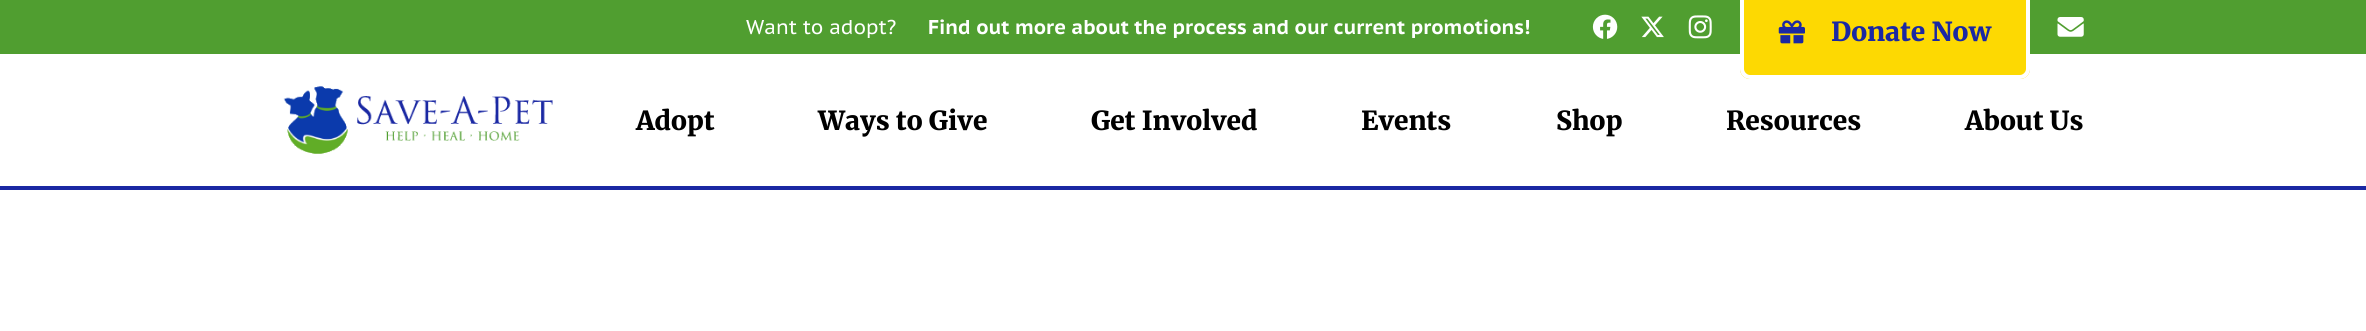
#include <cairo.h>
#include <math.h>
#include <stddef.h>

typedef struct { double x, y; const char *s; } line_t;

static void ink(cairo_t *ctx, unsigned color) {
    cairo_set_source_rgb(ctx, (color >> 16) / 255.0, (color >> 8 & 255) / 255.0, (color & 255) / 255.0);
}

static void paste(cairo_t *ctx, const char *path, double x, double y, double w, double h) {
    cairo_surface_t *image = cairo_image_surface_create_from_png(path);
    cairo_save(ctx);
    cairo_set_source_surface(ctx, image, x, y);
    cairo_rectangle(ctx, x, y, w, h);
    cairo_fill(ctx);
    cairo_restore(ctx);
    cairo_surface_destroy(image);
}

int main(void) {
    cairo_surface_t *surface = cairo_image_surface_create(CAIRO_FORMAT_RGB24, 2366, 331);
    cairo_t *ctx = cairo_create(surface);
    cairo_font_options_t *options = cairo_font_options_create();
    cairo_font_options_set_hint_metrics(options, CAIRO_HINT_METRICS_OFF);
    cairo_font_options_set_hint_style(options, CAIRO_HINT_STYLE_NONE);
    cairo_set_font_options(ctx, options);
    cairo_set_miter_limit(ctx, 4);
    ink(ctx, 0x509E30);
    cairo_paint(ctx);
    cairo_select_font_face(ctx, "PT Sans Caption", CAIRO_FONT_SLANT_NORMAL, CAIRO_FONT_WEIGHT_NORMAL);
    cairo_set_font_size(ctx, 20);
    ink(ctx, 0xFFFFFF);
    cairo_move_to(ctx, 746, 34);
    cairo_show_text(ctx, "Want to adopt?");
    cairo_select_font_face(ctx, "PT Sans Caption", CAIRO_FONT_SLANT_NORMAL, CAIRO_FONT_WEIGHT_BOLD);
    cairo_move_to(ctx, 928, 34);
    cairo_show_text(ctx, "Find out more about the process and our current promotions!");
    paste(ctx, "media/1.png", 1592, 14, 26, 25);
    paste(ctx, "media/2.png", 1641, 16, 23, 22);
    paste(ctx, "media/3.png", 1688, 15, 24, 24);
    cairo_rectangle(ctx, 0, 54, 2366, 132);
    cairo_fill(ctx);
    ink(ctx, 0xFDD902);
    cairo_new_path(ctx);
    cairo_move_to(ctx, 1740, 0);
    cairo_line_to(ctx, 2030, 0);
    cairo_line_to(ctx, 2030, 69);
    cairo_curve_to(ctx, 2030, 74.5, 2025.5, 79, 2020, 79);
    cairo_line_to(ctx, 1750, 79);
    cairo_curve_to(ctx, 1744.5, 79, 1740, 74.5, 1740, 69);
    cairo_close_path(ctx);
    cairo_fill(ctx);
    ink(ctx, 0xFFFFFF);
    cairo_set_fill_rule(ctx, CAIRO_FILL_RULE_EVEN_ODD);
    cairo_new_path(ctx);
    cairo_move_to(ctx, 1740, 0);
    cairo_line_to(ctx, 2030, 0);
    cairo_line_to(ctx, 2030, 69);
    cairo_curve_to(ctx, 2030, 74, 2026, 79, 2020, 79);
    cairo_line_to(ctx, 1750, 79);
    cairo_curve_to(ctx, 1744, 79, 1740, 74, 1740, 69);
    cairo_close_path(ctx);
    cairo_move_to(ctx, 1744, 0);
    cairo_line_to(ctx, 2026, 0);
    cairo_line_to(ctx, 2026, 69);
    cairo_curve_to(ctx, 2026, 72, 2023, 75, 2020, 75);
    cairo_line_to(ctx, 1750, 75);
    cairo_curve_to(ctx, 1747, 75, 1744, 72, 1744, 69);
    cairo_close_path(ctx);
    cairo_fill(ctx);
    paste(ctx, "media/4.png", 1778, 20, 27, 24);
    cairo_select_font_face(ctx, "Merriweather Light", CAIRO_FONT_SLANT_NORMAL, CAIRO_FONT_WEIGHT_NORMAL);
    cairo_set_font_size(ctx, 26.25);
    ink(ctx, 0x1A28A3);
    cairo_move_to(ctx, 1831, 41);
    cairo_show_text(ctx, "Donate Now");
    paste(ctx, "media/5.png", 2057, 17, 27, 20);
    paste(ctx, "media/6.png", 283, 86, 270, 68);
    ink(ctx, 0x000000);
    {
        static const line_t items[] = {
            {636, 130, "Adopt"},
            {818, 130, "Ways to Give"},
            {1091, 130, "Get Involved"},
            {1361, 130, "Events"},
            {1556, 130, "Shop"},
            {1726, 130, "Resources"},
            {1965, 130, "About Us"},
        };
        for (size_t i = 0; i < sizeof items / sizeof *items; i++) {
            cairo_move_to(ctx, items[i].x, items[i].y);
            cairo_show_text(ctx, items[i].s);
        }
    }
    ink(ctx, 0xFFFFFF);
    cairo_rectangle(ctx, 0, 190, 2366, 141);
    cairo_fill(ctx);
    ink(ctx, 0x1A28A3);
    cairo_rectangle(ctx, 0, 186, 2366, 4);
    cairo_fill(ctx);
    cairo_surface_write_to_png(surface, "image.png");
    cairo_font_options_destroy(options);
    cairo_destroy(ctx);
    cairo_surface_destroy(surface);
    return 0;
}
